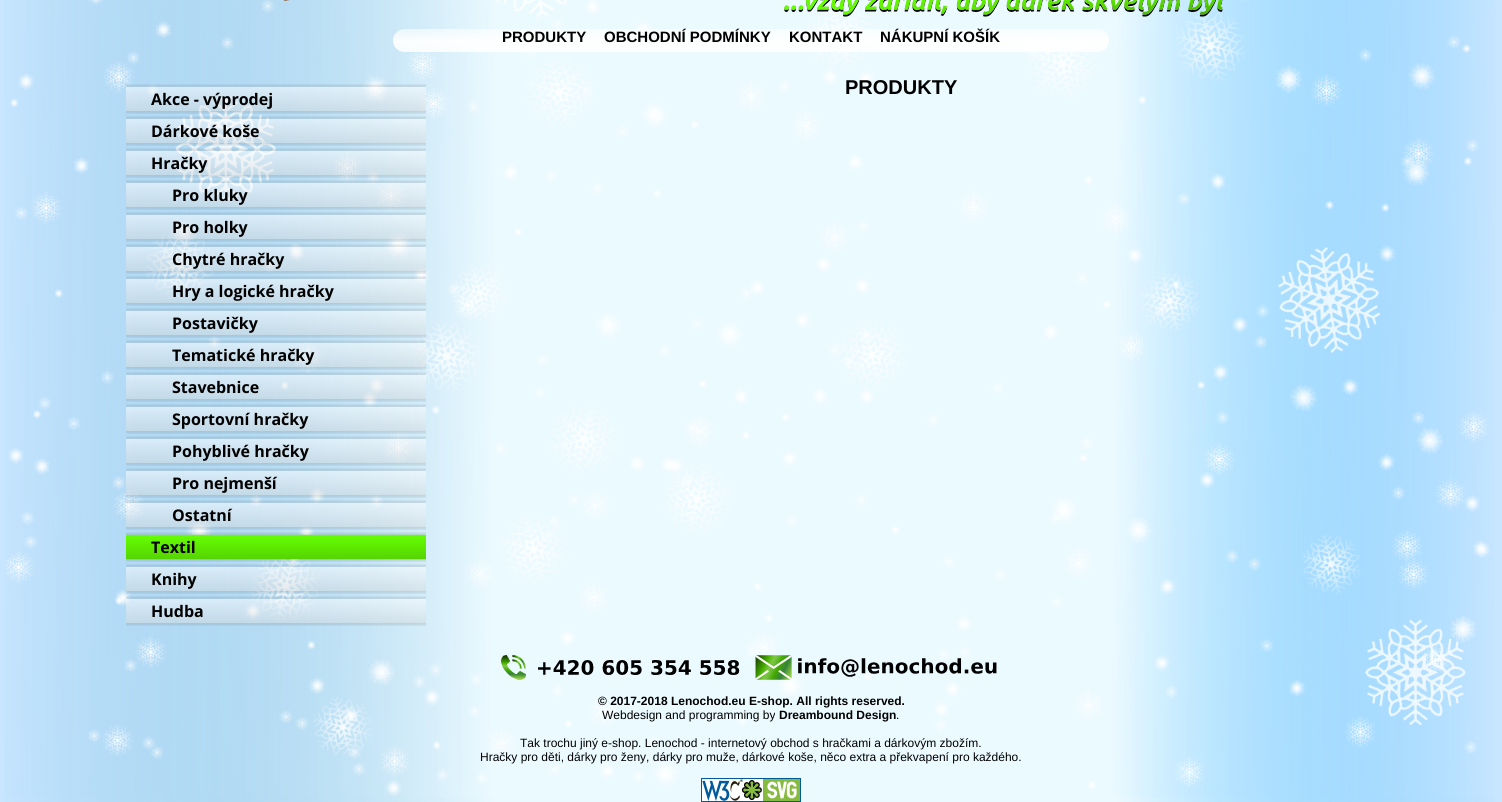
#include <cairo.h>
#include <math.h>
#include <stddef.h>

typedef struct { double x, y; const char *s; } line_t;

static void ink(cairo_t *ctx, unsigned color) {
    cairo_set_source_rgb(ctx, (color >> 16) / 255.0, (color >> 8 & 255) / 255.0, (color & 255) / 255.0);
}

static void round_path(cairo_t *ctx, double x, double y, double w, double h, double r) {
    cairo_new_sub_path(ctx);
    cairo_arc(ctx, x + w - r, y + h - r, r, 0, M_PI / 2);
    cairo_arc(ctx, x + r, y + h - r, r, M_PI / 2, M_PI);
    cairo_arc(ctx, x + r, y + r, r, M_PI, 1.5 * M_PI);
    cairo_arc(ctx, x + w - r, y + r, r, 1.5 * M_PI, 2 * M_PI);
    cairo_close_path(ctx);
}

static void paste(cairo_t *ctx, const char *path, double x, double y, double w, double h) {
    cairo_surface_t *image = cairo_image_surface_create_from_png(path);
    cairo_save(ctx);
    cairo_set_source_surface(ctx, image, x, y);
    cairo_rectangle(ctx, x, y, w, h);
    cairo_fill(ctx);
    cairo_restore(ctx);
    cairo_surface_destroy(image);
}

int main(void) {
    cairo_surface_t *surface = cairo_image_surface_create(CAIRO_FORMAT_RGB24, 1502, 802);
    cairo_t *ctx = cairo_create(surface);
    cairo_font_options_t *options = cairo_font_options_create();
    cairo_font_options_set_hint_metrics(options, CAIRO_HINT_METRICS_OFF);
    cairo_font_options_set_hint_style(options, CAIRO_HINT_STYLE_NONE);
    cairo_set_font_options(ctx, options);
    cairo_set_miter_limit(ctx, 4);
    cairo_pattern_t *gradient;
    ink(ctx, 0xC8E6FF);
    cairo_paint(ctx);
    paste(ctx, "media/1.png", 4, 0, 1491, 802);
    paste(ctx, "media/2.png", 283, 0, 940, 17);
    gradient = cairo_pattern_create_linear(753, 52, 753, 29);
    cairo_pattern_add_color_stop_rgba(gradient, 0, 1, 1, 1, 0.86);
    cairo_pattern_add_color_stop_rgba(gradient, 0.47, 1, 1, 1, 0.92);
    cairo_pattern_add_color_stop_rgba(gradient, 1, 1, 1, 1, 0.57);
    cairo_set_source(ctx, gradient);
    cairo_pattern_destroy(gradient);
    round_path(ctx, 393, 29, 716, 23, 11.5);
    cairo_fill(ctx);
    cairo_select_font_face(ctx, "Liberation Sans", CAIRO_FONT_SLANT_NORMAL, CAIRO_FONT_WEIGHT_BOLD);
    cairo_set_font_size(ctx, 15);
    ink(ctx, 0x000000);
    {
        static const line_t items[] = {
            {502, 42, "PRODUKTY"},
            {604, 42, "OBCHODNÍ PODMÍNKY"},
            {789, 42, "KONTAKT"},
            {880, 42, "NÁKUPNÍ KOŠÍK"},
        };
        for (size_t i = 0; i < sizeof items / sizeof *items; i++) {
            cairo_move_to(ctx, items[i].x, items[i].y);
            cairo_show_text(ctx, items[i].s);
        }
    }
    cairo_set_font_size(ctx, 20);
    cairo_move_to(ctx, 845, 94);
    cairo_show_text(ctx, "PRODUKTY");
    paste(ctx, "media/3.png", 126, 84, 300, 30);
    cairo_select_font_face(ctx, "Open Sans", CAIRO_FONT_SLANT_NORMAL, CAIRO_FONT_WEIGHT_BOLD);
    cairo_set_font_size(ctx, 16);
    cairo_move_to(ctx, 151, 105);
    cairo_show_text(ctx, "Akce - výprodej");
    paste(ctx, "media/4.png", 126, 116, 300, 30);
    cairo_move_to(ctx, 151, 137);
    cairo_show_text(ctx, "Dárkové koše");
    paste(ctx, "media/5.png", 126, 148, 300, 30);
    cairo_move_to(ctx, 151, 169);
    cairo_show_text(ctx, "Hračky");
    paste(ctx, "media/6.png", 126, 180, 300, 30);
    cairo_move_to(ctx, 172, 201);
    cairo_show_text(ctx, "Pro kluky");
    paste(ctx, "media/7.png", 126, 212, 300, 30);
    cairo_move_to(ctx, 172, 233);
    cairo_show_text(ctx, "Pro holky");
    paste(ctx, "media/8.png", 126, 244, 300, 30);
    cairo_move_to(ctx, 172, 265);
    cairo_show_text(ctx, "Chytré hračky");
    paste(ctx, "media/9.png", 126, 276, 300, 30);
    cairo_move_to(ctx, 172, 297);
    cairo_show_text(ctx, "Hry a logické hračky");
    paste(ctx, "media/10.png", 126, 308, 300, 30);
    cairo_move_to(ctx, 172, 329);
    cairo_show_text(ctx, "Postavičky");
    paste(ctx, "media/11.png", 126, 340, 300, 30);
    cairo_move_to(ctx, 172, 361);
    cairo_show_text(ctx, "Tematické hračky");
    paste(ctx, "media/12.png", 126, 372, 300, 30);
    cairo_move_to(ctx, 172, 393);
    cairo_show_text(ctx, "Stavebnice");
    paste(ctx, "media/13.png", 126, 404, 300, 30);
    cairo_move_to(ctx, 172, 425);
    cairo_show_text(ctx, "Sportovní hračky");
    paste(ctx, "media/14.png", 126, 436, 300, 30);
    cairo_move_to(ctx, 172, 457);
    cairo_show_text(ctx, "Pohyblivé hračky");
    paste(ctx, "media/15.png", 126, 468, 300, 30);
    cairo_move_to(ctx, 172, 489);
    cairo_show_text(ctx, "Pro nejmenší");
    paste(ctx, "media/16.png", 126, 500, 300, 30);
    cairo_move_to(ctx, 172, 521);
    cairo_show_text(ctx, "Ostatní");
    paste(ctx, "media/17.png", 126, 532, 300, 30);
    cairo_move_to(ctx, 151, 553);
    cairo_show_text(ctx, "Textil");
    paste(ctx, "media/18.png", 126, 564, 300, 30);
    cairo_move_to(ctx, 151, 585);
    cairo_show_text(ctx, "Knihy");
    paste(ctx, "media/19.png", 126, 596, 300, 30);
    cairo_move_to(ctx, 151, 617);
    cairo_show_text(ctx, "Hudba");
    paste(ctx, "media/20.png", 501, 655, 239, 25);
    paste(ctx, "media/21.png", 755, 655, 242, 25);
    cairo_select_font_face(ctx, "Liberation Sans", CAIRO_FONT_SLANT_NORMAL, CAIRO_FONT_WEIGHT_BOLD);
    cairo_set_font_size(ctx, 12);
    cairo_move_to(ctx, 598, 705);
    cairo_show_text(ctx, "© 2017-2018 Lenochod.eu E-shop. All rights reserved.");
    cairo_select_font_face(ctx, "Liberation Sans", CAIRO_FONT_SLANT_NORMAL, CAIRO_FONT_WEIGHT_NORMAL);
    cairo_move_to(ctx, 602, 719);
    cairo_show_text(ctx, "Webdesign and programming by");
    cairo_select_font_face(ctx, "Liberation Sans", CAIRO_FONT_SLANT_NORMAL, CAIRO_FONT_WEIGHT_BOLD);
    cairo_move_to(ctx, 779, 719);
    cairo_show_text(ctx, "Dreambound Design");
    cairo_select_font_face(ctx, "Liberation Sans", CAIRO_FONT_SLANT_NORMAL, CAIRO_FONT_WEIGHT_NORMAL);
    {
        static const line_t items[] = {
            {896, 719, "."},
            {520, 747, "Tak trochu jiný e-shop. Lenochod - internetový obchod s hračkami a dárkovým zbožím."},
            {480, 761, "Hračky pro děti, dárky pro ženy, dárky pro muže, dárkové koše, něco extra a překvapení pro každého."},
        };
        for (size_t i = 0; i < sizeof items / sizeof *items; i++) {
            cairo_move_to(ctx, items[i].x, items[i].y);
            cairo_show_text(ctx, items[i].s);
        }
    }
    paste(ctx, "media/22.png", 701, 778, 100, 24);
    cairo_surface_write_to_png(surface, "image.png");
    cairo_font_options_destroy(options);
    cairo_destroy(ctx);
    cairo_surface_destroy(surface);
    return 0;
}
